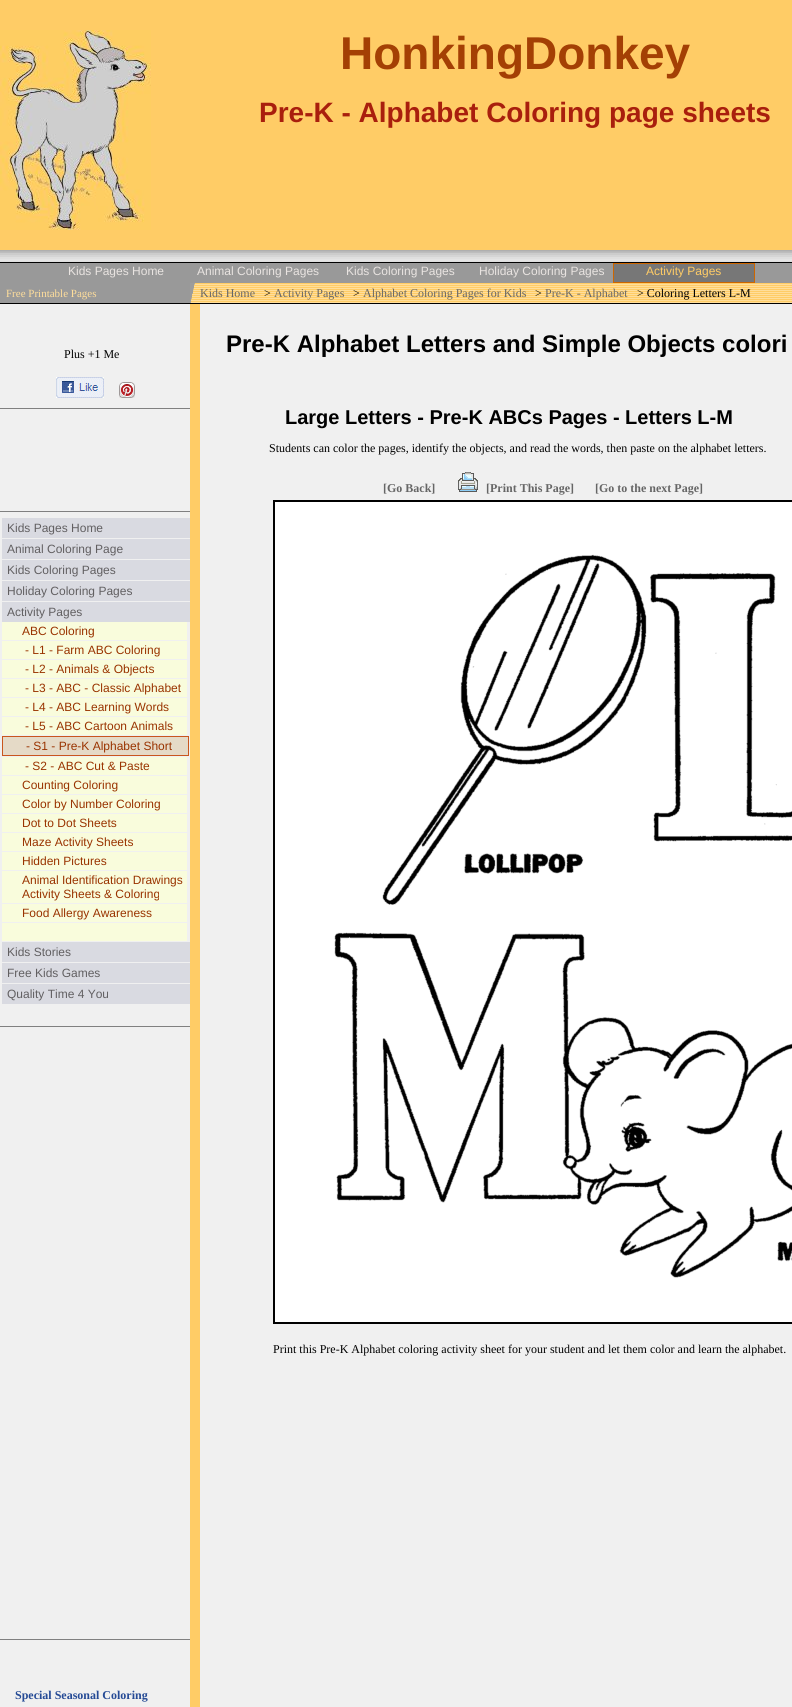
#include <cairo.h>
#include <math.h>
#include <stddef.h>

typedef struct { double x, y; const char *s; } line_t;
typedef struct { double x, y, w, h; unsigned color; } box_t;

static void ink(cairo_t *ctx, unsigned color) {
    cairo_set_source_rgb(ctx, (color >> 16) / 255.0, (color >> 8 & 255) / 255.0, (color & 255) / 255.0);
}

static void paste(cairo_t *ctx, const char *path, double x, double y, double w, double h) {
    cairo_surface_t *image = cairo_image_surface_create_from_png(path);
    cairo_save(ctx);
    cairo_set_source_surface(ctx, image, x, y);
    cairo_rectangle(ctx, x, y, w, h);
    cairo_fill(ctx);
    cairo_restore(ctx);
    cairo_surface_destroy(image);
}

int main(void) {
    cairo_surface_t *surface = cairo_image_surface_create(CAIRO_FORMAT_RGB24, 792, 1707);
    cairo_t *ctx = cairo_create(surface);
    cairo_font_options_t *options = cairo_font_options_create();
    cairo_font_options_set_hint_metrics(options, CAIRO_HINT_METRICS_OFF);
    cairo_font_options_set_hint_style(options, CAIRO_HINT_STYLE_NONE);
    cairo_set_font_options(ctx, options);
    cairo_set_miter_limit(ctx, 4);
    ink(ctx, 0xFFCC66);
    cairo_paint(ctx);
    paste(ctx, "media/1.png", 0, 30, 151, 200);
    cairo_select_font_face(ctx, "Liberation Sans", CAIRO_FONT_SLANT_NORMAL, CAIRO_FONT_WEIGHT_BOLD);
    cairo_set_font_size(ctx, 46);
    ink(ctx, 0xA44004);
    cairo_move_to(ctx, 340, 69);
    cairo_show_text(ctx, "HonkingDonkey");
    cairo_set_font_size(ctx, 28);
    ink(ctx, 0xA91F0D);
    cairo_move_to(ctx, 259, 122);
    cairo_show_text(ctx, "Pre-K - Alphabet Coloring page sheets");
    paste(ctx, "media/2.png", 0, 250, 151, 12);
    paste(ctx, "media/3.png", 151, 250, 641, 12);
    ink(ctx, 0x000000);
    cairo_rectangle(ctx, 0, 262, 792, 1);
    cairo_fill(ctx);
    ink(ctx, 0x999999);
    cairo_rectangle(ctx, 0, 263, 792, 20);
    cairo_fill(ctx);
    cairo_select_font_face(ctx, "Liberation Sans", CAIRO_FONT_SLANT_NORMAL, CAIRO_FONT_WEIGHT_NORMAL);
    cairo_set_font_size(ctx, 12);
    ink(ctx, 0xE9E4E1);
    {
        static const line_t items[] = {
            {68, 275, "Kids Pages Home"},
            {197, 275, "Animal Coloring Pages"},
            {346, 275, "Kids Coloring Pages"},
            {479, 275, "Holiday Coloring Pages"},
        };
        for (size_t i = 0; i < sizeof items / sizeof *items; i++) {
            cairo_move_to(ctx, items[i].x, items[i].y);
            cairo_show_text(ctx, items[i].s);
        }
    }
    ink(ctx, 0x777777);
    cairo_rectangle(ctx, 613.5, 263.5, 141, 19);
    cairo_fill_preserve(ctx);
    ink(ctx, 0xCC6600);
    cairo_set_line_width(ctx, 1);
    cairo_stroke(ctx);
    ink(ctx, 0xFFCC66);
    cairo_move_to(ctx, 646, 275);
    cairo_show_text(ctx, "Activity Pages");
    ink(ctx, 0x999999);
    cairo_rectangle(ctx, 0, 283, 190, 20);
    cairo_fill(ctx);
    cairo_select_font_face(ctx, "Liberation Serif", CAIRO_FONT_SLANT_NORMAL, CAIRO_FONT_WEIGHT_NORMAL);
    cairo_set_font_size(ctx, 11);
    ink(ctx, 0xFFDE9B);
    cairo_move_to(ctx, 6, 297);
    cairo_show_text(ctx, "Free Printable Pages");
    paste(ctx, "media/4.png", 195, 284, 5, 19);
    paste(ctx, "media/5.png", 190, 283, 5, 20);
    paste(ctx, "media/6.png", 200, 284, 592, 19);
    cairo_set_font_size(ctx, 12);
    ink(ctx, 0x666666);
    cairo_move_to(ctx, 200, 297);
    cairo_show_text(ctx, "Kids Home");
    ink(ctx, 0x000000);
    cairo_move_to(ctx, 264, 297);
    cairo_show_text(ctx, ">");
    ink(ctx, 0x666666);
    cairo_move_to(ctx, 274, 297);
    cairo_show_text(ctx, "Activity Pages");
    ink(ctx, 0x000000);
    cairo_move_to(ctx, 353, 297);
    cairo_show_text(ctx, ">");
    ink(ctx, 0x666666);
    cairo_move_to(ctx, 363, 297);
    cairo_show_text(ctx, "Alphabet Coloring Pages for Kids");
    ink(ctx, 0x000000);
    cairo_move_to(ctx, 535, 297);
    cairo_show_text(ctx, ">");
    ink(ctx, 0x666666);
    cairo_move_to(ctx, 545, 297);
    cairo_show_text(ctx, "Pre-K - Alphabet");
    ink(ctx, 0x000000);
    cairo_move_to(ctx, 637, 297);
    cairo_show_text(ctx, "> Coloring Letters L-M");
    cairo_rectangle(ctx, 0, 303, 792, 1);
    cairo_fill(ctx);
    ink(ctx, 0xF0F0F0);
    cairo_rectangle(ctx, 0, 304, 190, 1403);
    cairo_fill(ctx);
    ink(ctx, 0x000000);
    cairo_move_to(ctx, 64, 358);
    cairo_show_text(ctx, "Plus +1 Me");
    paste(ctx, "media/7.png", 56, 377, 48, 21);
    paste(ctx, "media/8.png", 119, 382, 16, 16);
    {
        static const box_t items[] = {
            {0, 408, 190, 1, 0x808080},
            {0, 511, 190, 1, 0x808080},
            {2, 518, 188, 20, 0xD9DAE1},
        };
        for (size_t i = 0; i < sizeof items / sizeof *items; i++) {
            ink(ctx, items[i].color);
            cairo_rectangle(ctx, items[i].x, items[i].y, items[i].w, items[i].h);
            cairo_fill(ctx);
        }
    }
    cairo_select_font_face(ctx, "Liberation Sans", CAIRO_FONT_SLANT_NORMAL, CAIRO_FONT_WEIGHT_NORMAL);
    ink(ctx, 0x615F61);
    cairo_move_to(ctx, 7, 532);
    cairo_show_text(ctx, "Kids Pages Home");
    ink(ctx, 0xD9DAE1);
    cairo_rectangle(ctx, 2, 539, 188, 20);
    cairo_fill(ctx);
    ink(ctx, 0x615F61);
    cairo_move_to(ctx, 7, 553);
    cairo_show_text(ctx, "Animal Coloring Page");
    ink(ctx, 0xD9DAE1);
    cairo_rectangle(ctx, 2, 560, 188, 20);
    cairo_fill(ctx);
    ink(ctx, 0x615F61);
    cairo_move_to(ctx, 7, 574);
    cairo_show_text(ctx, "Kids Coloring Pages");
    ink(ctx, 0xD9DAE1);
    cairo_rectangle(ctx, 2, 581, 188, 20);
    cairo_fill(ctx);
    ink(ctx, 0x615F61);
    cairo_move_to(ctx, 7, 595);
    cairo_show_text(ctx, "Holiday Coloring Pages");
    ink(ctx, 0xD9DAE1);
    cairo_rectangle(ctx, 2, 602, 188, 20);
    cairo_fill(ctx);
    ink(ctx, 0x615F61);
    cairo_move_to(ctx, 7, 616);
    cairo_show_text(ctx, "Activity Pages");
    ink(ctx, 0xF9FCDC);
    cairo_rectangle(ctx, 2, 622, 185, 18);
    cairo_fill(ctx);
    ink(ctx, 0x993300);
    cairo_move_to(ctx, 22, 635);
    cairo_show_text(ctx, "ABC Coloring");
    ink(ctx, 0xF9FCDC);
    cairo_rectangle(ctx, 2, 641, 185, 18);
    cairo_fill(ctx);
    ink(ctx, 0x993300);
    cairo_move_to(ctx, 25, 654);
    cairo_show_text(ctx, "- L1 - Farm ABC Coloring");
    ink(ctx, 0xF9FCDC);
    cairo_rectangle(ctx, 2, 660, 185, 18);
    cairo_fill(ctx);
    ink(ctx, 0x993300);
    cairo_move_to(ctx, 25, 673);
    cairo_show_text(ctx, "- L2 - Animals & Objects");
    ink(ctx, 0xF9FCDC);
    cairo_rectangle(ctx, 2, 679, 185, 18);
    cairo_fill(ctx);
    ink(ctx, 0x993300);
    cairo_move_to(ctx, 25, 692);
    cairo_show_text(ctx, "- L3 - ABC - Classic Alphabet");
    ink(ctx, 0xF9FCDC);
    cairo_rectangle(ctx, 2, 698, 185, 18);
    cairo_fill(ctx);
    ink(ctx, 0x993300);
    cairo_move_to(ctx, 25, 711);
    cairo_show_text(ctx, "- L4 - ABC Learning Words");
    ink(ctx, 0xF9FCDC);
    cairo_rectangle(ctx, 2, 717, 185, 18);
    cairo_fill(ctx);
    ink(ctx, 0x993300);
    cairo_move_to(ctx, 25, 730);
    cairo_show_text(ctx, "- L5 - ABC Cartoon Animals");
    ink(ctx, 0xE5DAC7);
    cairo_rectangle(ctx, 2.5, 736.5, 186, 19);
    cairo_fill_preserve(ctx);
    ink(ctx, 0xC9561D);
    cairo_stroke(ctx);
    ink(ctx, 0x993300);
    cairo_move_to(ctx, 26, 750);
    cairo_show_text(ctx, "- S1 - Pre-K Alphabet Short");
    ink(ctx, 0xF9FCDC);
    cairo_rectangle(ctx, 2, 757, 185, 18);
    cairo_fill(ctx);
    ink(ctx, 0x993300);
    cairo_move_to(ctx, 25, 770);
    cairo_show_text(ctx, "- S2 - ABC Cut & Paste");
    ink(ctx, 0xF9FCDC);
    cairo_rectangle(ctx, 2, 776, 185, 18);
    cairo_fill(ctx);
    ink(ctx, 0x993300);
    cairo_move_to(ctx, 22, 789);
    cairo_show_text(ctx, "Counting Coloring");
    ink(ctx, 0xF9FCDC);
    cairo_rectangle(ctx, 2, 795, 185, 18);
    cairo_fill(ctx);
    ink(ctx, 0x993300);
    cairo_move_to(ctx, 22, 808);
    cairo_show_text(ctx, "Color by Number Coloring");
    ink(ctx, 0xF9FCDC);
    cairo_rectangle(ctx, 2, 814, 185, 18);
    cairo_fill(ctx);
    ink(ctx, 0x993300);
    cairo_move_to(ctx, 22, 827);
    cairo_show_text(ctx, "Dot to Dot Sheets");
    ink(ctx, 0xF9FCDC);
    cairo_rectangle(ctx, 2, 833, 185, 18);
    cairo_fill(ctx);
    ink(ctx, 0x993300);
    cairo_move_to(ctx, 22, 846);
    cairo_show_text(ctx, "Maze Activity Sheets");
    ink(ctx, 0xF9FCDC);
    cairo_rectangle(ctx, 2, 852, 185, 18);
    cairo_fill(ctx);
    ink(ctx, 0x993300);
    cairo_move_to(ctx, 22, 865);
    cairo_show_text(ctx, "Hidden Pictures");
    ink(ctx, 0xF9FCDC);
    cairo_rectangle(ctx, 2, 871, 185, 32);
    cairo_fill(ctx);
    ink(ctx, 0x993300);
    cairo_move_to(ctx, 22, 884);
    cairo_show_text(ctx, "Animal Identification Drawings");
    cairo_move_to(ctx, 22, 898);
    cairo_show_text(ctx, "Activity Sheets & Coloring");
    ink(ctx, 0xF9FCDC);
    cairo_rectangle(ctx, 2, 904, 185, 18);
    cairo_fill(ctx);
    ink(ctx, 0x993300);
    cairo_move_to(ctx, 22, 917);
    cairo_show_text(ctx, "Food Allergy Awareness");
    ink(ctx, 0xF9FCDC);
    cairo_rectangle(ctx, 2, 923, 185, 18);
    cairo_fill(ctx);
    ink(ctx, 0xD9DAE1);
    cairo_rectangle(ctx, 2, 942, 188, 20);
    cairo_fill(ctx);
    ink(ctx, 0x615F61);
    cairo_move_to(ctx, 7, 956);
    cairo_show_text(ctx, "Kids Stories");
    ink(ctx, 0xD9DAE1);
    cairo_rectangle(ctx, 2, 963, 188, 20);
    cairo_fill(ctx);
    ink(ctx, 0x615F61);
    cairo_move_to(ctx, 7, 977);
    cairo_show_text(ctx, "Free Kids Games");
    ink(ctx, 0xD9DAE1);
    cairo_rectangle(ctx, 2, 984, 188, 20);
    cairo_fill(ctx);
    ink(ctx, 0x615F61);
    cairo_move_to(ctx, 7, 998);
    cairo_show_text(ctx, "Quality Time 4 You");
    ink(ctx, 0x808080);
    cairo_rectangle(ctx, 0, 1026, 190, 1);
    cairo_fill(ctx);
    cairo_rectangle(ctx, 0, 1639, 190, 1);
    cairo_fill(ctx);
    cairo_select_font_face(ctx, "Liberation Serif", CAIRO_FONT_SLANT_NORMAL, CAIRO_FONT_WEIGHT_BOLD);
    ink(ctx, 0x254A95);
    cairo_move_to(ctx, 15, 1699);
    cairo_show_text(ctx, "Special Seasonal Coloring");
    ink(ctx, 0xF0F0F0);
    cairo_rectangle(ctx, 200, 304, 592, 1403);
    cairo_fill(ctx);
    cairo_select_font_face(ctx, "Liberation Sans", CAIRO_FONT_SLANT_NORMAL, CAIRO_FONT_WEIGHT_BOLD);
    cairo_set_font_size(ctx, 24);
    ink(ctx, 0x000000);
    cairo_move_to(ctx, 226, 352);
    cairo_show_text(ctx, "Pre-K Alphabet Letters and Simple Objects colori");
    cairo_set_font_size(ctx, 20);
    cairo_move_to(ctx, 285, 424);
    cairo_show_text(ctx, "Large Letters - Pre-K ABCs Pages - Letters L-M");
    cairo_select_font_face(ctx, "Liberation Serif", CAIRO_FONT_SLANT_NORMAL, CAIRO_FONT_WEIGHT_NORMAL);
    cairo_set_font_size(ctx, 12);
    cairo_move_to(ctx, 269, 452);
    cairo_show_text(ctx, "Students can color the pages, identify the objects, and read the words, then paste on the alphabet letters.");
    cairo_select_font_face(ctx, "Liberation Serif", CAIRO_FONT_SLANT_NORMAL, CAIRO_FONT_WEIGHT_BOLD);
    ink(ctx, 0x666666);
    cairo_move_to(ctx, 383, 492);
    cairo_show_text(ctx, "[Go Back]");
    paste(ctx, "media/9.png", 458, 472, 20, 20);
    cairo_move_to(ctx, 486, 492);
    cairo_show_text(ctx, "[Print This Page]");
    cairo_move_to(ctx, 595, 492);
    cairo_show_text(ctx, "[Go to the next Page]");
    cairo_rectangle(ctx, 274, 501, 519, 822);
    ink(ctx, 0x000000);
    cairo_set_line_width(ctx, 2);
    cairo_stroke(ctx);
    paste(ctx, "media/10.png", 275, 502, 517, 820);
    cairo_select_font_face(ctx, "Liberation Serif", CAIRO_FONT_SLANT_NORMAL, CAIRO_FONT_WEIGHT_NORMAL);
    cairo_move_to(ctx, 273, 1353);
    cairo_show_text(ctx, "Print this Pre-K Alphabet coloring activity sheet for your student and let them color and learn the alphabet.");
    cairo_surface_write_to_png(surface, "image.png");
    cairo_font_options_destroy(options);
    cairo_destroy(ctx);
    cairo_surface_destroy(surface);
    return 0;
}
